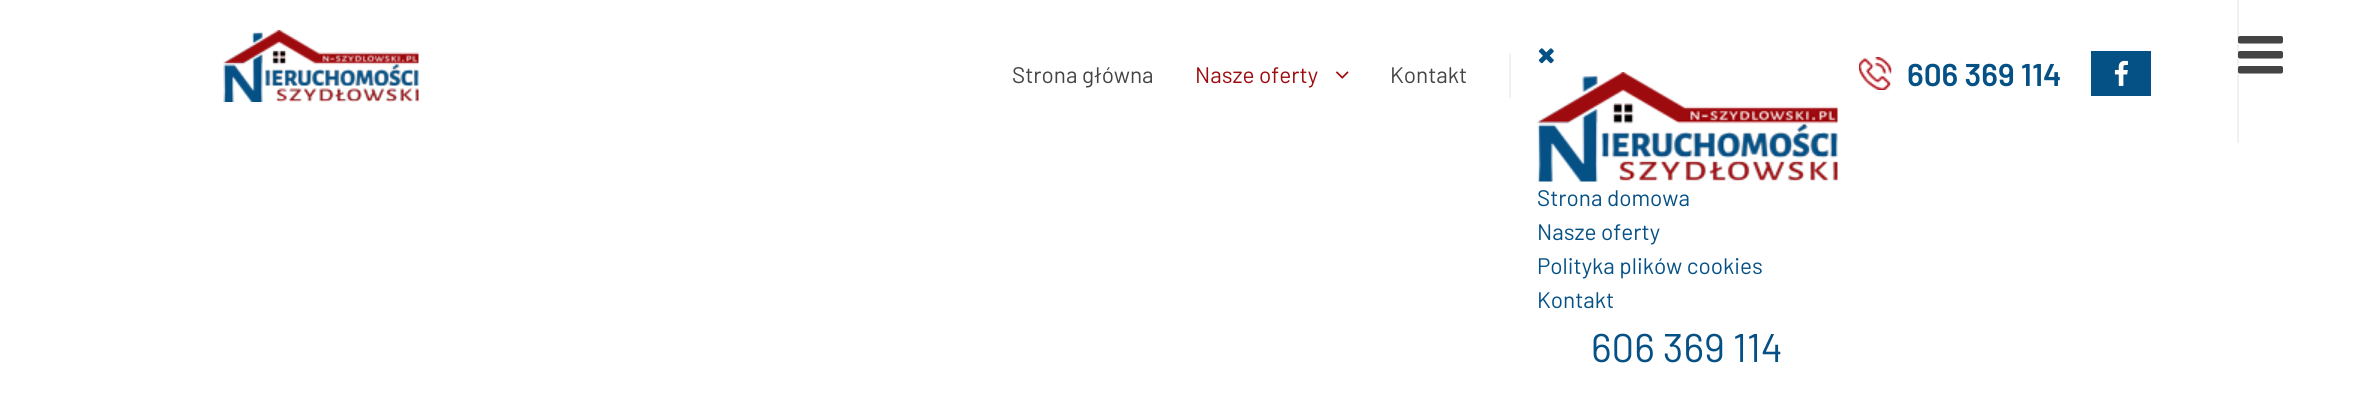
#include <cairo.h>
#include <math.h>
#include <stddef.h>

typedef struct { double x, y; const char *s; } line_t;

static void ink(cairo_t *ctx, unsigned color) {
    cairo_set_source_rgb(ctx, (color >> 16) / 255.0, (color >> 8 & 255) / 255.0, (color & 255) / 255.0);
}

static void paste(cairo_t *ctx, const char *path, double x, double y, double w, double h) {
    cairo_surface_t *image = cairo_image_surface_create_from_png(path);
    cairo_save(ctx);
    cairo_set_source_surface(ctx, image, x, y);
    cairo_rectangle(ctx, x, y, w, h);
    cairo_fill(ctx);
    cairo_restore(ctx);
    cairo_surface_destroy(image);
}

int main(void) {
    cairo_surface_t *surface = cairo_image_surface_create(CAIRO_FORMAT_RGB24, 2380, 416);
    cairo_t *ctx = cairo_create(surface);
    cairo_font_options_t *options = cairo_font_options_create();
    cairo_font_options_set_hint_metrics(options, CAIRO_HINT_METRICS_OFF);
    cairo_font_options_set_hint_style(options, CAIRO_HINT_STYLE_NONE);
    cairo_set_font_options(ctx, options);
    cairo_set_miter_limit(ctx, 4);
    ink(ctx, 0xFFFFFF);
    cairo_paint(ctx);
    paste(ctx, "media/1.png", 223, 30, 196, 72);
    cairo_select_font_face(ctx, "Barlow", CAIRO_FONT_SLANT_NORMAL, CAIRO_FONT_WEIGHT_NORMAL);
    cairo_set_font_size(ctx, 22.5);
    ink(ctx, 0x444444);
    cairo_move_to(ctx, 1012, 83);
    cairo_show_text(ctx, "Strona główna");
    ink(ctx, 0x9E0B0F);
    cairo_move_to(ctx, 1195, 83);
    cairo_show_text(ctx, "Nasze oferty");
    paste(ctx, "media/2.png", 1336, 71, 13, 8);
    ink(ctx, 0x444444);
    cairo_move_to(ctx, 1390, 83);
    cairo_show_text(ctx, "Kontakt");
    ink(ctx, 0xF1F1F1);
    cairo_rectangle(ctx, 1509, 53, 2, 45);
    cairo_fill(ctx);
    paste(ctx, "media/3.png", 1859, 57, 33, 33);
    cairo_select_font_face(ctx, "Barlow SemiBold", CAIRO_FONT_SLANT_NORMAL, CAIRO_FONT_WEIGHT_NORMAL);
    cairo_set_font_size(ctx, 31.5);
    ink(ctx, 0x055085);
    cairo_move_to(ctx, 1907, 86);
    cairo_show_text(ctx, "606 369 114");
    cairo_rectangle(ctx, 2091, 51, 60, 45);
    cairo_fill(ctx);
    paste(ctx, "media/4.png", 2114, 60, 14, 26);
    ink(ctx, 0xF1F1F1);
    cairo_rectangle(ctx, 2237, 0, 2, 143);
    cairo_fill(ctx);
    paste(ctx, "media/5.png", 2238, 36, 45, 38);
    paste(ctx, "media/6.png", 1538, 48, 16, 16);
    paste(ctx, "media/7.png", 1537, 72, 301, 110);
    cairo_select_font_face(ctx, "Barlow", CAIRO_FONT_SLANT_NORMAL, CAIRO_FONT_WEIGHT_NORMAL);
    cairo_set_font_size(ctx, 22.5);
    ink(ctx, 0x055085);
    {
        static const line_t items[] = {
            {1537, 206, "Strona domowa"},
            {1537, 240, "Nasze oferty"},
            {1537, 274, "Polityka plików cookies"},
            {1537, 308, "Kontakt"},
        };
        for (size_t i = 0; i < sizeof items / sizeof *items; i++) {
            cairo_move_to(ctx, items[i].x, items[i].y);
            cairo_show_text(ctx, items[i].s);
        }
    }
    cairo_set_font_size(ctx, 40);
    cairo_move_to(ctx, 1591, 362);
    cairo_show_text(ctx, "606 369 114");
    cairo_surface_write_to_png(surface, "image.png");
    cairo_font_options_destroy(options);
    cairo_destroy(ctx);
    cairo_surface_destroy(surface);
    return 0;
}
